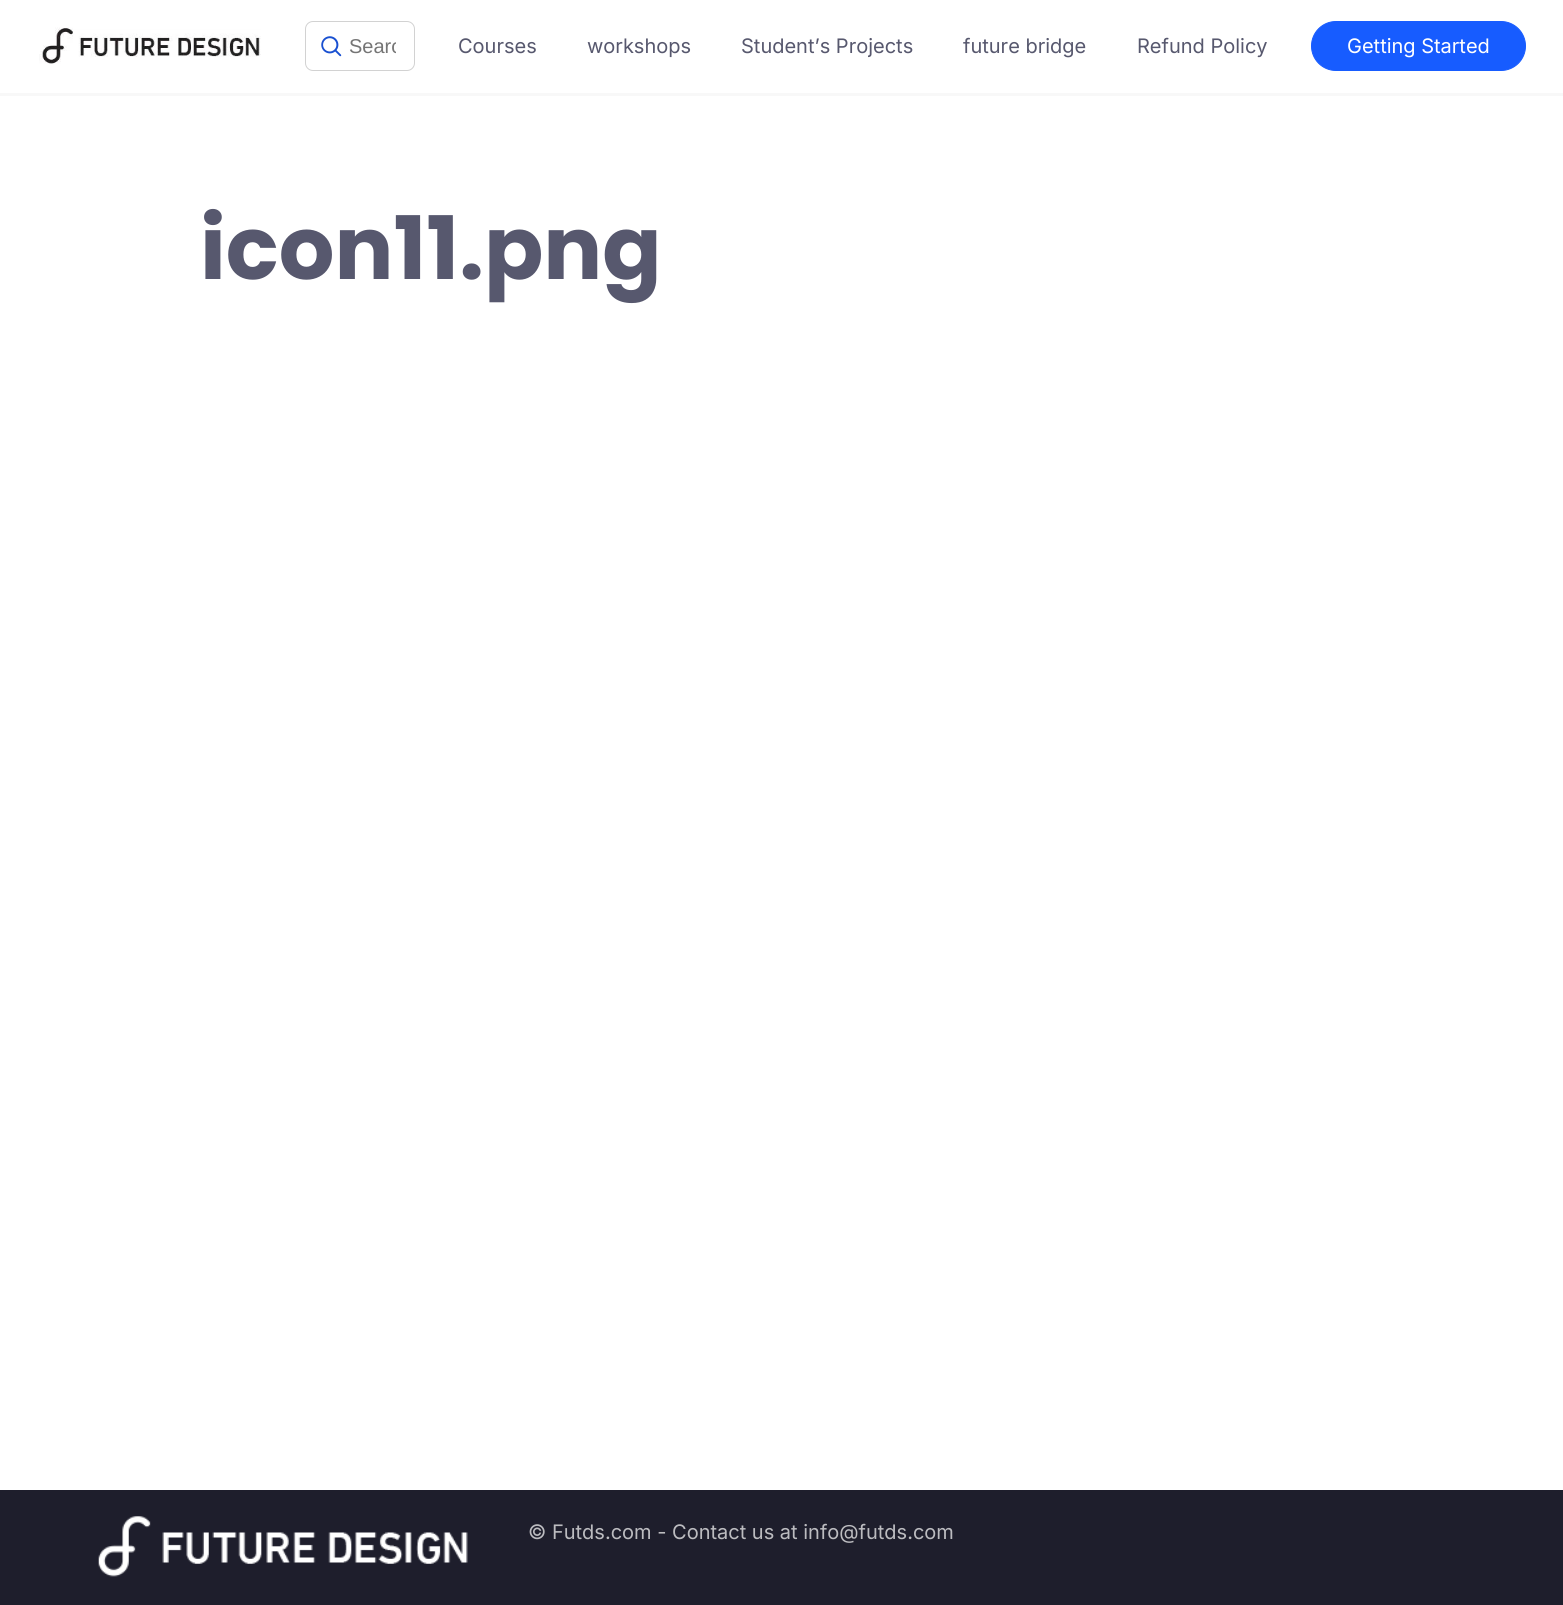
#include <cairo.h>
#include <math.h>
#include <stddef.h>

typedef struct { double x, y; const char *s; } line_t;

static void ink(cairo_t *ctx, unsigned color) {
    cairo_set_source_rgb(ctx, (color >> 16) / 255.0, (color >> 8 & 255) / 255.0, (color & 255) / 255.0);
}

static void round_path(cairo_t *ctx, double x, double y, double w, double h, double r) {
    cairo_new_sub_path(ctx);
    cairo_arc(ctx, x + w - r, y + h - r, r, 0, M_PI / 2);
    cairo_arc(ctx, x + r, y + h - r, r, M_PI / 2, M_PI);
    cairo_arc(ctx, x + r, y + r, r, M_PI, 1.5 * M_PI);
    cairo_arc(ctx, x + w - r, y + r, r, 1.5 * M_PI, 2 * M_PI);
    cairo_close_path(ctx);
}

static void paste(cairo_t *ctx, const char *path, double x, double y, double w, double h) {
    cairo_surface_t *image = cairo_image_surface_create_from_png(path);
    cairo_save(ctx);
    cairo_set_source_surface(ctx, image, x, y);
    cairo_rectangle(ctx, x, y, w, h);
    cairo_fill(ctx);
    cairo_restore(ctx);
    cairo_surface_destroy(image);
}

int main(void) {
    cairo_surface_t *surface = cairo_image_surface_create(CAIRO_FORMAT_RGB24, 1563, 1605);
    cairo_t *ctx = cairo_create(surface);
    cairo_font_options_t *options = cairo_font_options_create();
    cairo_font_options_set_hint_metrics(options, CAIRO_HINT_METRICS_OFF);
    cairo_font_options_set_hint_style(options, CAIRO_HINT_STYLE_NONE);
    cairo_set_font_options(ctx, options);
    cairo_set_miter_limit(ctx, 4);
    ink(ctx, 0xFFFFFF);
    cairo_paint(ctx);
    ink(ctx, 0xF8F8F8);
    cairo_rectangle(ctx, 0, 93, 1563, 3);
    cairo_fill(ctx);
    paste(ctx, "media/1.png", 39, 27, 222, 37);
    paste(ctx, "media/2.png", 321, 36, 21, 21);
    round_path(ctx, 305.5, 21.5, 109, 49, 7.5);
    ink(ctx, 0xD2D2D2);
    cairo_set_line_width(ctx, 1);
    cairo_stroke(ctx);
    cairo_save(ctx);
    cairo_rectangle(ctx, 349, 35, 47, 23);
    cairo_clip(ctx);
    cairo_select_font_face(ctx, "Liberation Sans", CAIRO_FONT_SLANT_NORMAL, CAIRO_FONT_WEIGHT_NORMAL);
    cairo_set_font_size(ctx, 20);
    ink(ctx, 0x757575);
    cairo_move_to(ctx, 349, 53);
    cairo_show_text(ctx, "Searc");
    cairo_restore(ctx);
    cairo_select_font_face(ctx, "Inter", CAIRO_FONT_SLANT_NORMAL, CAIRO_FONT_WEIGHT_NORMAL);
    cairo_set_font_size(ctx, 20);
    ink(ctx, 0x57586E);
    {
        static const line_t items[] = {
            {458, 53, "Courses"},
            {587, 53, "workshops"},
            {741, 53, "Student’s Projects"},
            {963, 53, "future bridge"},
            {1137, 53, "Refund Policy"},
        };
        for (size_t i = 0; i < sizeof items / sizeof *items; i++) {
            cairo_move_to(ctx, items[i].x, items[i].y);
            cairo_show_text(ctx, items[i].s);
        }
    }
    ink(ctx, 0x175CFF);
    round_path(ctx, 1311.5, 21.5, 214, 49, 24.5);
    cairo_fill_preserve(ctx);
    cairo_stroke(ctx);
    ink(ctx, 0xFFFFFF);
    cairo_move_to(ctx, 1347, 53);
    cairo_show_text(ctx, "Getting Started");
    cairo_select_font_face(ctx, "Poppins", CAIRO_FONT_SLANT_NORMAL, CAIRO_FONT_WEIGHT_BOLD);
    cairo_set_font_size(ctx, 87.5);
    ink(ctx, 0x57586E);
    cairo_move_to(ctx, 200, 279);
    cairo_show_text(ctx, "icon11.png");
    ink(ctx, 0x1E1E2C);
    cairo_rectangle(ctx, 0, 1490, 1563, 115);
    cairo_fill(ctx);
    paste(ctx, "media/3.png", 98, 1516, 370, 61);
    cairo_select_font_face(ctx, "Inter", CAIRO_FONT_SLANT_NORMAL, CAIRO_FONT_WEIGHT_NORMAL);
    cairo_set_font_size(ctx, 20);
    ink(ctx, 0xBCBCC0);
    cairo_move_to(ctx, 528, 1539);
    cairo_show_text(ctx, "© Futds.com - Contact us at info@futds.com");
    cairo_surface_write_to_png(surface, "image.png");
    cairo_font_options_destroy(options);
    cairo_destroy(ctx);
    cairo_surface_destroy(surface);
    return 0;
}
